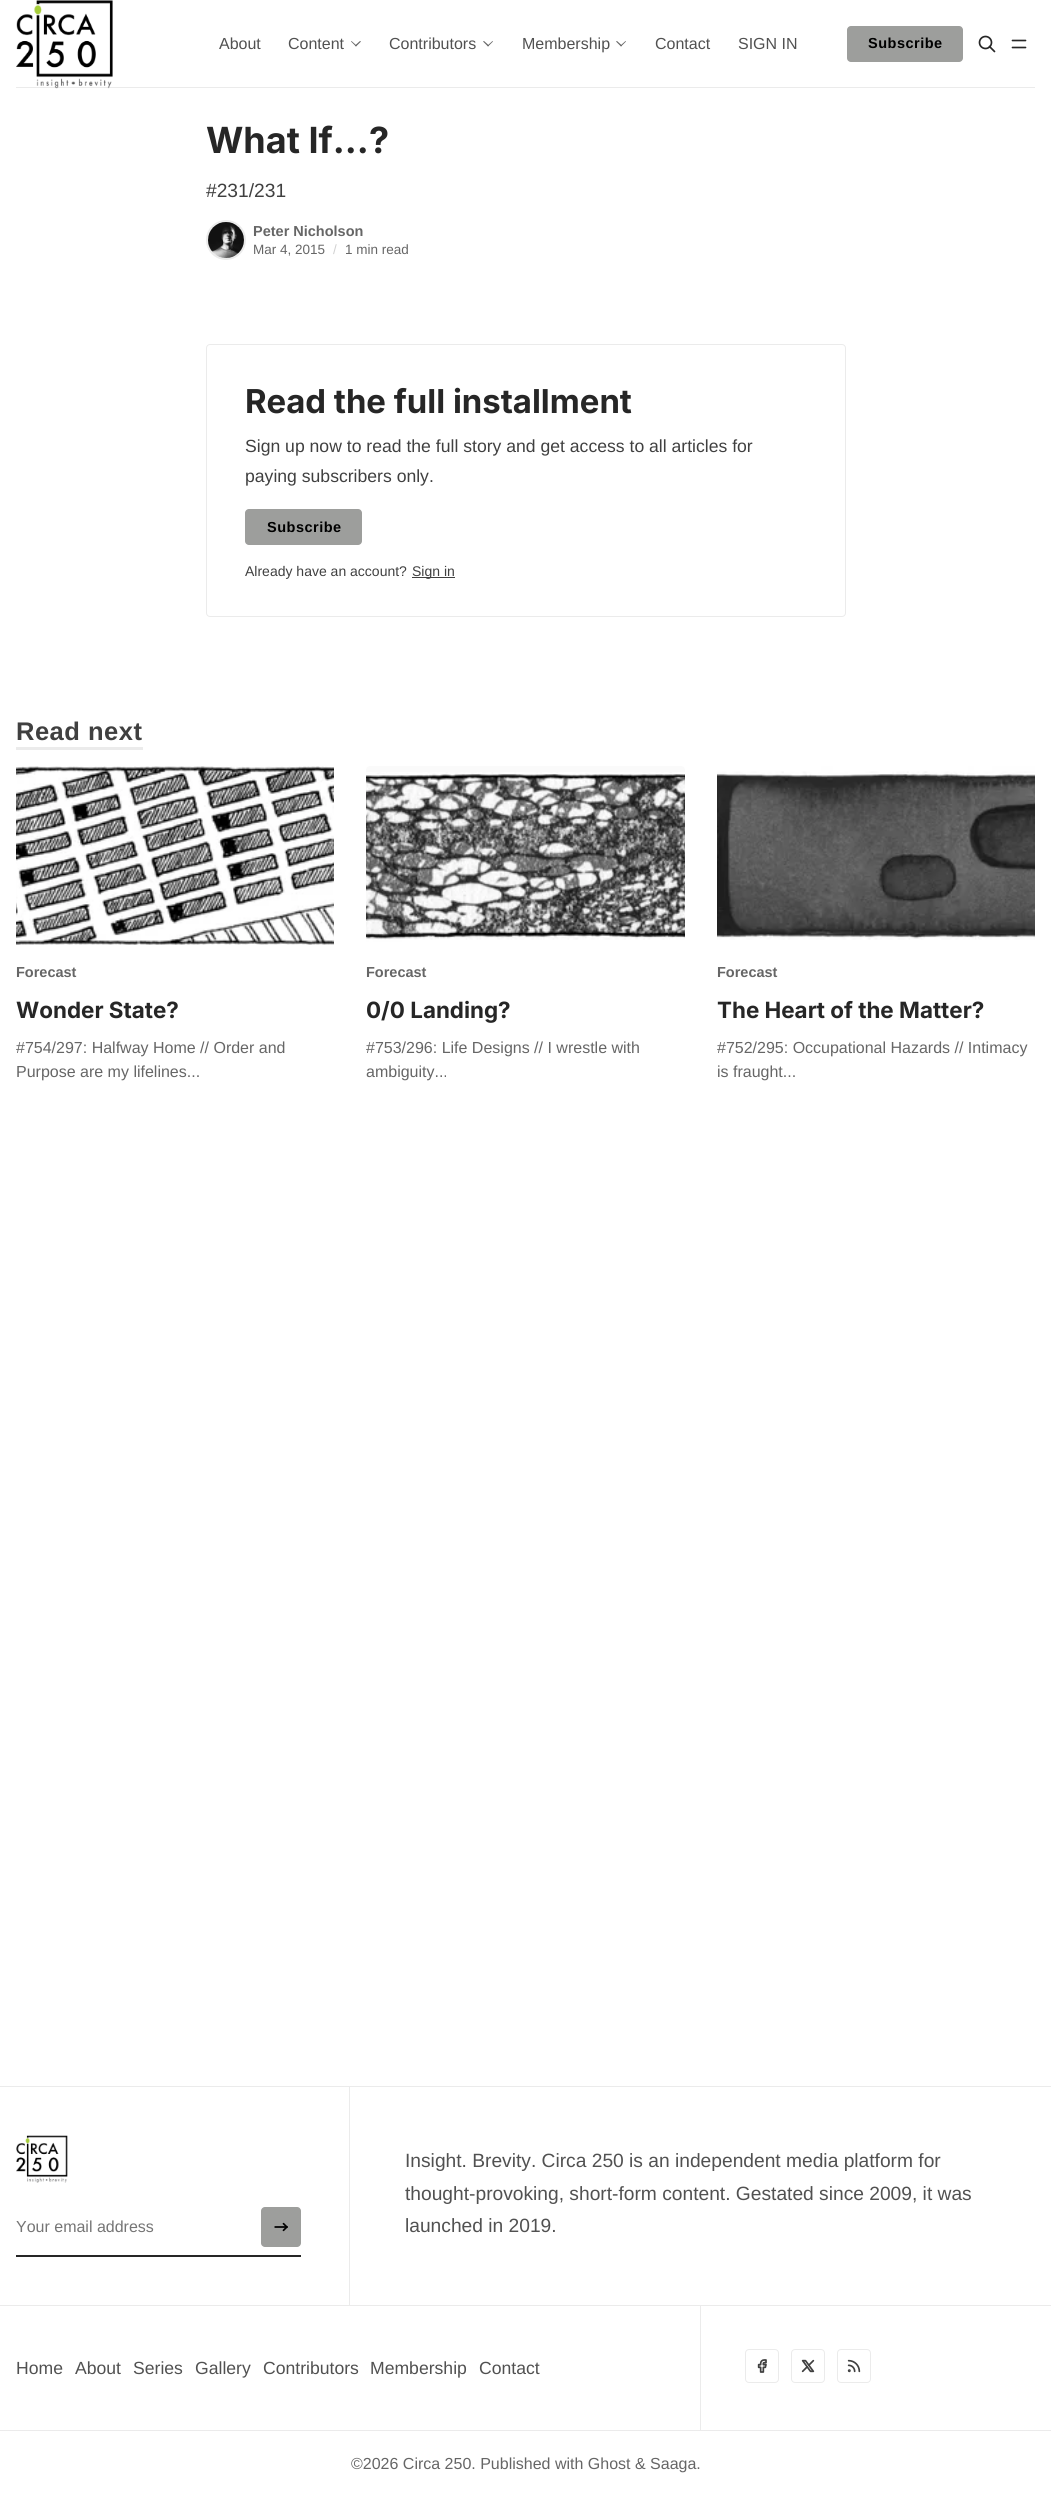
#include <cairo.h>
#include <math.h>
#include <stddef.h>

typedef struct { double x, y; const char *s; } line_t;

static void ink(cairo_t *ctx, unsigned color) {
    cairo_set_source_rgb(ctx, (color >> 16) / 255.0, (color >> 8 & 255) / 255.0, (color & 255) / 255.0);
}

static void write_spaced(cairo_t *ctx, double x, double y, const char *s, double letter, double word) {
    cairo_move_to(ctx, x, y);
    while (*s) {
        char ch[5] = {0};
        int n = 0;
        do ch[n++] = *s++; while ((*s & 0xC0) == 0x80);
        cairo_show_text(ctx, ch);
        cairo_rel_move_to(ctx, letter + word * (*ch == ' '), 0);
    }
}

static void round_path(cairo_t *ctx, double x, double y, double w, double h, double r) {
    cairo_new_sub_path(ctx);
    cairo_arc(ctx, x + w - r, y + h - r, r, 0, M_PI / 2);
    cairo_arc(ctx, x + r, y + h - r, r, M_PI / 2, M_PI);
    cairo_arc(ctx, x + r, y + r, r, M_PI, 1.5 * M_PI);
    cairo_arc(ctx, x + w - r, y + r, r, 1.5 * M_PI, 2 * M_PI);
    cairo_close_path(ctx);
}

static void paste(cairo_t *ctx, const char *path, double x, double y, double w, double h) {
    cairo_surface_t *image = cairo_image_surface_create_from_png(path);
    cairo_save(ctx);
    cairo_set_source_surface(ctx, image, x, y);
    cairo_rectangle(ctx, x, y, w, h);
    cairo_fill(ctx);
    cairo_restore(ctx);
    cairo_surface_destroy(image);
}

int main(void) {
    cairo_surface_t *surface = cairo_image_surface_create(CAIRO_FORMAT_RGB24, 1051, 2497);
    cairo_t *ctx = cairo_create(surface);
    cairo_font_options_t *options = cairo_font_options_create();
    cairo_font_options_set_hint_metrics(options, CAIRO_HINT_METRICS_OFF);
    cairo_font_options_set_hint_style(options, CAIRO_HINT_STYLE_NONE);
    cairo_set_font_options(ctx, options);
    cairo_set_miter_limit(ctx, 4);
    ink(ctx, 0xFFFFFF);
    cairo_paint(ctx);
    ink(ctx, 0xEBEBEB);
    cairo_rectangle(ctx, 16, 87, 1019, 1);
    cairo_fill(ctx);
    paste(ctx, "media/1.png", 16, 0, 97, 89);
    cairo_select_font_face(ctx, "Liberation Sans", CAIRO_FONT_SLANT_NORMAL, CAIRO_FONT_WEIGHT_NORMAL);
    cairo_set_font_size(ctx, 16);
    ink(ctx, 0x515151);
    cairo_move_to(ctx, 219, 49);
    cairo_show_text(ctx, "About");
    cairo_move_to(ctx, 288, 49);
    cairo_show_text(ctx, "Content");
    ink(ctx, 0x666666);
    cairo_new_path(ctx);
    cairo_move_to(ctx, 361, 41.5);
    cairo_line_to(ctx, 356, 46.5);
    cairo_line_to(ctx, 355, 45.5);
    cairo_line_to(ctx, 360, 41);
    cairo_close_path(ctx);
    cairo_fill(ctx);
    cairo_new_path(ctx);
    cairo_move_to(ctx, 356.5, 45.5);
    cairo_line_to(ctx, 356, 46.5);
    cairo_line_to(ctx, 351, 41.5);
    cairo_line_to(ctx, 351.5, 41);
    cairo_close_path(ctx);
    cairo_fill(ctx);
    ink(ctx, 0x515151);
    cairo_move_to(ctx, 389, 49);
    cairo_show_text(ctx, "Contributors");
    ink(ctx, 0x666666);
    cairo_new_path(ctx);
    cairo_move_to(ctx, 493, 41.5);
    cairo_line_to(ctx, 488, 46.5);
    cairo_line_to(ctx, 487.5, 45.5);
    cairo_line_to(ctx, 492.5, 41);
    cairo_close_path(ctx);
    cairo_fill(ctx);
    cairo_new_path(ctx);
    cairo_move_to(ctx, 489, 45.5);
    cairo_line_to(ctx, 488, 46.5);
    cairo_line_to(ctx, 483, 41.5);
    cairo_line_to(ctx, 484, 41);
    cairo_close_path(ctx);
    cairo_fill(ctx);
    ink(ctx, 0x515151);
    cairo_move_to(ctx, 522, 49);
    cairo_show_text(ctx, "Membership");
    ink(ctx, 0x666666);
    cairo_new_path(ctx);
    cairo_move_to(ctx, 626, 41.5);
    cairo_line_to(ctx, 621, 46.5);
    cairo_line_to(ctx, 620.5, 45.5);
    cairo_line_to(ctx, 625.5, 41);
    cairo_close_path(ctx);
    cairo_fill(ctx);
    cairo_new_path(ctx);
    cairo_move_to(ctx, 622, 45.5);
    cairo_line_to(ctx, 621, 46.5);
    cairo_line_to(ctx, 616, 41.5);
    cairo_line_to(ctx, 617, 41);
    cairo_close_path(ctx);
    cairo_fill(ctx);
    ink(ctx, 0x515151);
    cairo_move_to(ctx, 655, 49);
    cairo_show_text(ctx, "Contact");
    cairo_move_to(ctx, 738, 49);
    cairo_show_text(ctx, "SIGN IN");
    ink(ctx, 0x9D9E9C);
    round_path(ctx, 847, 26, 116, 36, 4);
    cairo_fill(ctx);
    cairo_select_font_face(ctx, "Liberation Sans", CAIRO_FONT_SLANT_NORMAL, CAIRO_FONT_WEIGHT_BOLD);
    cairo_set_font_size(ctx, 14.5);
    ink(ctx, 0x000000);
    write_spaced(ctx, 868, 48, "Subscribe", 0.5, 0);
    cairo_new_path(ctx);
    cairo_arc(ctx, 985.5, 42.5, 6, 0, 2 * M_PI);
    ink(ctx, 0x262626);
    cairo_set_line_width(ctx, 1.7);
    cairo_stroke(ctx);
    cairo_new_path(ctx);
    cairo_move_to(ctx, 994.5, 51.5);
    cairo_line_to(ctx, 989.5, 46.5);
    cairo_move_to(ctx, 1012.5, 40.5);
    cairo_line_to(ctx, 1025.5, 40.5);
    cairo_move_to(ctx, 1012.5, 47.5);
    cairo_line_to(ctx, 1025.5, 47.5);
    cairo_set_line_cap(ctx, CAIRO_LINE_CAP_ROUND);
    cairo_set_line_join(ctx, CAIRO_LINE_JOIN_ROUND);
    cairo_stroke(ctx);
    cairo_select_font_face(ctx, "Inter", CAIRO_FONT_SLANT_NORMAL, CAIRO_FONT_WEIGHT_BOLD);
    cairo_set_font_size(ctx, 36);
    cairo_move_to(ctx, 206, 153);
    cairo_show_text(ctx, "What If...?");
    cairo_select_font_face(ctx, "Liberation Sans", CAIRO_FONT_SLANT_NORMAL, CAIRO_FONT_WEIGHT_NORMAL);
    cairo_set_font_size(ctx, 19.2);
    ink(ctx, 0x404040);
    cairo_move_to(ctx, 206, 197);
    cairo_show_text(ctx, "#231/231");
    cairo_new_path(ctx);
    cairo_arc(ctx, 226, 240, 19, 0, 2 * M_PI);
    ink(ctx, 0xEBEBEB);
    cairo_set_line_width(ctx, 2);
    cairo_set_line_cap(ctx, CAIRO_LINE_CAP_BUTT);
    cairo_set_line_join(ctx, CAIRO_LINE_JOIN_MITER);
    cairo_stroke(ctx);
    paste(ctx, "media/2.png", 208, 222, 36, 36);
    cairo_select_font_face(ctx, "Liberation Sans", CAIRO_FONT_SLANT_NORMAL, CAIRO_FONT_WEIGHT_BOLD);
    cairo_set_font_size(ctx, 14.5);
    ink(ctx, 0x666666);
    cairo_move_to(ctx, 253, 236);
    cairo_show_text(ctx, "Peter Nicholson");
    cairo_select_font_face(ctx, "Liberation Sans", CAIRO_FONT_SLANT_NORMAL, CAIRO_FONT_WEIGHT_NORMAL);
    cairo_set_font_size(ctx, 13.5);
    cairo_move_to(ctx, 253, 254);
    cairo_show_text(ctx, "Mar 4, 2015");
    ink(ctx, 0xD1D1D1);
    cairo_move_to(ctx, 333, 254);
    cairo_show_text(ctx, "/");
    ink(ctx, 0x666666);
    cairo_move_to(ctx, 345, 254);
    cairo_show_text(ctx, "1 min read");
    round_path(ctx, 206.5, 344.5, 639, 272, 3.5);
    ink(ctx, 0xEBEBEB);
    cairo_set_line_width(ctx, 1);
    cairo_stroke(ctx);
    cairo_select_font_face(ctx, "Inter", CAIRO_FONT_SLANT_NORMAL, CAIRO_FONT_WEIGHT_BOLD);
    cairo_set_font_size(ctx, 32.9);
    ink(ctx, 0x262626);
    cairo_move_to(ctx, 245, 413);
    cairo_show_text(ctx, "Read the full installment");
    cairo_select_font_face(ctx, "Liberation Sans", CAIRO_FONT_SLANT_NORMAL, CAIRO_FONT_WEIGHT_NORMAL);
    cairo_set_font_size(ctx, 17.6);
    ink(ctx, 0x404040);
    cairo_move_to(ctx, 245, 452);
    cairo_show_text(ctx, "Sign up now to read the full story and get access to all articles for");
    cairo_move_to(ctx, 245, 482);
    cairo_show_text(ctx, "paying subscribers only.");
    ink(ctx, 0x9D9E9C);
    round_path(ctx, 245, 509, 117, 36, 4);
    cairo_fill(ctx);
    cairo_select_font_face(ctx, "Liberation Sans", CAIRO_FONT_SLANT_NORMAL, CAIRO_FONT_WEIGHT_BOLD);
    cairo_set_font_size(ctx, 14.5);
    ink(ctx, 0x000000);
    write_spaced(ctx, 267, 532, "Subscribe", 0.5, 0);
    cairo_select_font_face(ctx, "Liberation Sans", CAIRO_FONT_SLANT_NORMAL, CAIRO_FONT_WEIGHT_NORMAL);
    cairo_set_font_size(ctx, 14);
    ink(ctx, 0x404040);
    cairo_move_to(ctx, 245, 576);
    cairo_show_text(ctx, "Already have an account?");
    cairo_rectangle(ctx, 412, 577, 43, 1);
    cairo_fill(ctx);
    cairo_move_to(ctx, 412, 576);
    cairo_show_text(ctx, "Sign in");
    ink(ctx, 0xEBEBEB);
    cairo_rectangle(ctx, 16, 747, 127, 3);
    cairo_fill(ctx);
    cairo_select_font_face(ctx, "Liberation Sans", CAIRO_FONT_SLANT_NORMAL, CAIRO_FONT_WEIGHT_BOLD);
    cairo_set_font_size(ctx, 25.5);
    ink(ctx, 0x404040);
    write_spaced(ctx, 16, 740, "Read next", 0.5, 0);
    paste(ctx, "media/3.png", 16, 766, 318, 179);
    cairo_set_font_size(ctx, 14.5);
    ink(ctx, 0x666666);
    cairo_move_to(ctx, 16, 977);
    cairo_show_text(ctx, "Forecast");
    cairo_select_font_face(ctx, "Inter", CAIRO_FONT_SLANT_NORMAL, CAIRO_FONT_WEIGHT_BOLD);
    cairo_set_font_size(ctx, 22.4);
    ink(ctx, 0x262626);
    cairo_move_to(ctx, 16, 1018);
    cairo_show_text(ctx, "Wonder State?");
    cairo_select_font_face(ctx, "Liberation Sans", CAIRO_FONT_SLANT_NORMAL, CAIRO_FONT_WEIGHT_NORMAL);
    cairo_set_font_size(ctx, 16);
    ink(ctx, 0x666666);
    cairo_move_to(ctx, 16, 1053);
    cairo_show_text(ctx, "#754/297: Halfway Home // Order and");
    cairo_move_to(ctx, 16, 1077);
    cairo_show_text(ctx, "Purpose are my lifelines...");
    ink(ctx, 0xFAFAFA);
    round_path(ctx, 366, 766, 319, 179, 4);
    cairo_fill(ctx);
    paste(ctx, "media/4.png", 366, 772, 319, 173);
    cairo_select_font_face(ctx, "Liberation Sans", CAIRO_FONT_SLANT_NORMAL, CAIRO_FONT_WEIGHT_BOLD);
    cairo_set_font_size(ctx, 14.5);
    ink(ctx, 0x666666);
    cairo_move_to(ctx, 366, 977);
    cairo_show_text(ctx, "Forecast");
    cairo_select_font_face(ctx, "Inter", CAIRO_FONT_SLANT_NORMAL, CAIRO_FONT_WEIGHT_BOLD);
    cairo_set_font_size(ctx, 22.4);
    ink(ctx, 0x262626);
    cairo_move_to(ctx, 366, 1018);
    cairo_show_text(ctx, "0/0 Landing?");
    cairo_select_font_face(ctx, "Liberation Sans", CAIRO_FONT_SLANT_NORMAL, CAIRO_FONT_WEIGHT_NORMAL);
    cairo_set_font_size(ctx, 16);
    ink(ctx, 0x666666);
    cairo_move_to(ctx, 366, 1053);
    cairo_show_text(ctx, "#753/296: Life Designs // I wrestle with");
    cairo_move_to(ctx, 366, 1077);
    cairo_show_text(ctx, "ambiguity...");
    paste(ctx, "media/5.png", 717, 766, 318, 179);
    cairo_select_font_face(ctx, "Liberation Sans", CAIRO_FONT_SLANT_NORMAL, CAIRO_FONT_WEIGHT_BOLD);
    cairo_set_font_size(ctx, 14.5);
    cairo_move_to(ctx, 717, 977);
    cairo_show_text(ctx, "Forecast");
    cairo_select_font_face(ctx, "Inter", CAIRO_FONT_SLANT_NORMAL, CAIRO_FONT_WEIGHT_BOLD);
    cairo_set_font_size(ctx, 22.4);
    ink(ctx, 0x262626);
    cairo_move_to(ctx, 717, 1018);
    cairo_show_text(ctx, "The Heart of the Matter?");
    cairo_select_font_face(ctx, "Liberation Sans", CAIRO_FONT_SLANT_NORMAL, CAIRO_FONT_WEIGHT_NORMAL);
    cairo_set_font_size(ctx, 16);
    ink(ctx, 0x666666);
    cairo_move_to(ctx, 717, 1053);
    cairo_show_text(ctx, "#752/295: Occupational Hazards // Intimacy");
    cairo_move_to(ctx, 717, 1077);
    cairo_show_text(ctx, "is fraught...");
    ink(ctx, 0xEBEBEB);
    cairo_rectangle(ctx, 0, 2086, 1051, 1);
    cairo_fill(ctx);
    cairo_rectangle(ctx, 349, 2087, 1, 218);
    cairo_fill(ctx);
    paste(ctx, "media/6.png", 16, 2135, 52, 48);
    ink(ctx, 0x262626);
    cairo_rectangle(ctx, 16, 2255, 285, 2);
    cairo_fill(ctx);
    ink(ctx, 0x757575);
    cairo_move_to(ctx, 16, 2232);
    cairo_show_text(ctx, "Your email address");
    ink(ctx, 0x9D9E9C);
    round_path(ctx, 261, 2207, 40, 40, 4);
    cairo_fill(ctx);
    paste(ctx, "media/7.png", 274, 2222, 14, 10);
    cairo_set_font_size(ctx, 19.2);
    ink(ctx, 0x515151);
    {
        static const line_t items[] = {
            {405, 2167, "Insight. Brevity. Circa 250 is an independent media platform for"},
            {405, 2200, "thought-provoking, short-form content. Gestated since 2009, it was"},
            {405, 2232, "launched in 2019."},
        };
        for (size_t i = 0; i < sizeof items / sizeof *items; i++) {
            cairo_move_to(ctx, items[i].x, items[i].y);
            cairo_show_text(ctx, items[i].s);
        }
    }
    ink(ctx, 0xEBEBEB);
    cairo_rectangle(ctx, 0, 2305, 1051, 1);
    cairo_fill(ctx);
    cairo_rectangle(ctx, 700, 2306, 1, 124);
    cairo_fill(ctx);
    cairo_set_font_size(ctx, 17.6);
    ink(ctx, 0x515151);
    {
        static const line_t items[] = {
            {16, 2374, "Home"},
            {75, 2374, "About"},
            {133, 2374, "Series"},
            {195, 2374, "Gallery"},
            {263, 2374, "Contributors"},
            {370, 2374, "Membership"},
            {479, 2374, "Contact"},
        };
        for (size_t i = 0; i < sizeof items / sizeof *items; i++) {
            cairo_move_to(ctx, items[i].x, items[i].y);
            cairo_show_text(ctx, items[i].s);
        }
    }
    round_path(ctx, 745.5, 2349.5, 33, 33, 3.5);
    ink(ctx, 0xEBEBEB);
    cairo_stroke(ctx);
    paste(ctx, "media/8.png", 757, 2359, 10, 14);
    round_path(ctx, 791.5, 2349.5, 33, 33, 3.5);
    cairo_stroke(ctx);
    paste(ctx, "media/9.png", 801, 2359, 14, 14);
    round_path(ctx, 837.5, 2349.5, 33, 33, 3.5);
    cairo_stroke(ctx);
    paste(ctx, "media/10.png", 847, 2359, 14, 14);
    cairo_rectangle(ctx, 0, 2430, 1051, 1);
    cairo_fill(ctx);
    cairo_set_font_size(ctx, 16);
    ink(ctx, 0x666666);
    cairo_move_to(ctx, 351, 2469);
    cairo_show_text(ctx, "©2026 Circa 250. Published with Ghost & Saaga.");
    cairo_surface_write_to_png(surface, "image.png");
    cairo_font_options_destroy(options);
    cairo_destroy(ctx);
    cairo_surface_destroy(surface);
    return 0;
}
